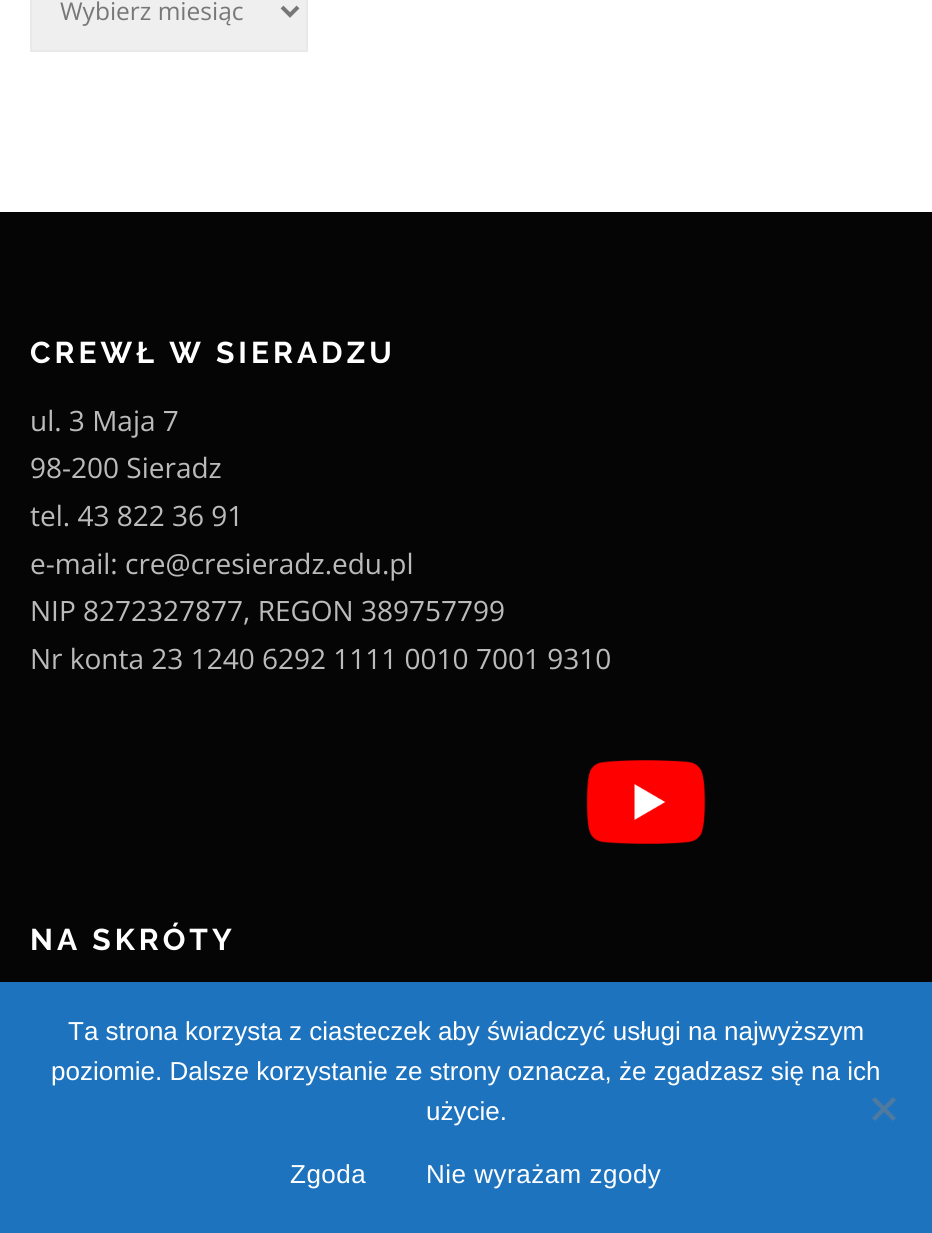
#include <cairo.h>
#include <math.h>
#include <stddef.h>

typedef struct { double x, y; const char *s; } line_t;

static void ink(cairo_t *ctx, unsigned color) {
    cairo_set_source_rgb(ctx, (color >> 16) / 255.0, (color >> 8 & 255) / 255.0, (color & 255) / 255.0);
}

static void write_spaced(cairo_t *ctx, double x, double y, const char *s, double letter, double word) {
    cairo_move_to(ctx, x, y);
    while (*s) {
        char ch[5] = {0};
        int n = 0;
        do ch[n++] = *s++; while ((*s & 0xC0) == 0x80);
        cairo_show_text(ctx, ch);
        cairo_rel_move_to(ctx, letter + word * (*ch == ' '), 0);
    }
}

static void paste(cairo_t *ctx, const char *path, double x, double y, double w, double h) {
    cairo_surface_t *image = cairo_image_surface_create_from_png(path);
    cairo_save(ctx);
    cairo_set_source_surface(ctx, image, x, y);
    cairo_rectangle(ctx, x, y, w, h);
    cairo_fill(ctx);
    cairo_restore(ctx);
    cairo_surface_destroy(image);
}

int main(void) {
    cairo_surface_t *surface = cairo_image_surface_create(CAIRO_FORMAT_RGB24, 932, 1233);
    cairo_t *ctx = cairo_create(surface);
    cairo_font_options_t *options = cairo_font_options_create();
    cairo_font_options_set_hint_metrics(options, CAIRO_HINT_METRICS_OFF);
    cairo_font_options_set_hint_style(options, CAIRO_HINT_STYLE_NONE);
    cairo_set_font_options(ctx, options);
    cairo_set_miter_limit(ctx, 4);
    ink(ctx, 0xFFFFFF);
    cairo_paint(ctx);
    ink(ctx, 0xEFEFEF);
    cairo_rectangle(ctx, 31, -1, 276, 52);
    cairo_fill_preserve(ctx);
    ink(ctx, 0xE9E9E9);
    cairo_stroke(ctx);
    cairo_new_path(ctx);
    cairo_move_to(ctx, 282, 7);
    cairo_line_to(ctx, 290, 15);
    cairo_line_to(ctx, 298, 7);
    ink(ctx, 0x777777);
    cairo_set_line_width(ctx, 4);
    cairo_stroke(ctx);
    cairo_select_font_face(ctx, "Open Sans", CAIRO_FONT_SLANT_NORMAL, CAIRO_FONT_WEIGHT_NORMAL);
    cairo_set_font_size(ctx, 24.5);
    cairo_move_to(ctx, 60, 20);
    cairo_show_text(ctx, "Wybierz miesiąc");
    ink(ctx, 0x050505);
    cairo_rectangle(ctx, 0, 212, 932, 770);
    cairo_fill(ctx);
    cairo_select_font_face(ctx, "Raleway", CAIRO_FONT_SLANT_NORMAL, CAIRO_FONT_WEIGHT_BOLD);
    cairo_set_font_size(ctx, 30);
    ink(ctx, 0xFFFFFF);
    write_spaced(ctx, 30, 363, "CREWŁ W SIERADZU", 4, 0);
    cairo_select_font_face(ctx, "Open Sans", CAIRO_FONT_SLANT_NORMAL, CAIRO_FONT_WEIGHT_NORMAL);
    cairo_set_font_size(ctx, 28);
    ink(ctx, 0xBBBBBB);
    {
        static const line_t items[] = {
            {30, 431, "ul. 3 Maja 7"},
            {30, 478, "98-200 Sieradz"},
            {30, 526, "tel. 43 822 36 91"},
            {30, 574, "e-mail: cre@cresieradz.edu.pl"},
            {30, 621, "NIP 8272327877, REGON 389757799"},
            {30, 669, "Nr konta 23 1240 6292 1111 0010 7001 9310"},
        };
        for (size_t i = 0; i < sizeof items / sizeof *items; i++) {
            cairo_move_to(ctx, items[i].x, items[i].y);
            cairo_show_text(ctx, items[i].s);
        }
    }
    paste(ctx, "media/1.png", 586, 760, 120, 84);
    cairo_select_font_face(ctx, "Raleway", CAIRO_FONT_SLANT_NORMAL, CAIRO_FONT_WEIGHT_BOLD);
    cairo_set_font_size(ctx, 30);
    ink(ctx, 0xFFFFFF);
    write_spaced(ctx, 30, 950, "NA SKRÓTY", 4, 0);
    ink(ctx, 0x1E73BE);
    cairo_rectangle(ctx, 0, 982, 932, 251);
    cairo_fill(ctx);
    cairo_select_font_face(ctx, "Liberation Sans", CAIRO_FONT_SLANT_NORMAL, CAIRO_FONT_WEIGHT_NORMAL);
    cairo_set_font_size(ctx, 26);
    ink(ctx, 0xFFFFFF);
    {
        static const line_t items[] = {
            {68, 1040, "Ta strona korzysta z ciasteczek aby świadczyć usługi na najwyższym"},
            {51, 1080, "poziomie. Dalsze korzystanie ze strony oznacza, że zgadzasz się na ich"},
            {426, 1120, "użycie."},
        };
        for (size_t i = 0; i < sizeof items / sizeof *items; i++) {
            cairo_move_to(ctx, items[i].x, items[i].y);
            cairo_show_text(ctx, items[i].s);
        }
    }
    ink(ctx, 0x4F7A9F);
    cairo_new_path(ctx);
    cairo_move_to(ctx, 893, 1097);
    cairo_line_to(ctx, 896, 1100);
    cairo_line_to(ctx, 875, 1121);
    cairo_line_to(ctx, 872, 1118);
    cairo_close_path(ctx);
    cairo_fill(ctx);
    cairo_new_path(ctx);
    cairo_move_to(ctx, 872, 1100);
    cairo_line_to(ctx, 875, 1097);
    cairo_line_to(ctx, 896, 1118);
    cairo_line_to(ctx, 893, 1121);
    cairo_close_path(ctx);
    cairo_fill(ctx);
    ink(ctx, 0xFFFFFF);
    write_spaced(ctx, 290, 1183, "Zgoda", 0.5, 0);
    write_spaced(ctx, 426, 1183, "Nie wyrażam zgody", 0.5, 0);
    cairo_surface_write_to_png(surface, "image.png");
    cairo_font_options_destroy(options);
    cairo_destroy(ctx);
    cairo_surface_destroy(surface);
    return 0;
}
